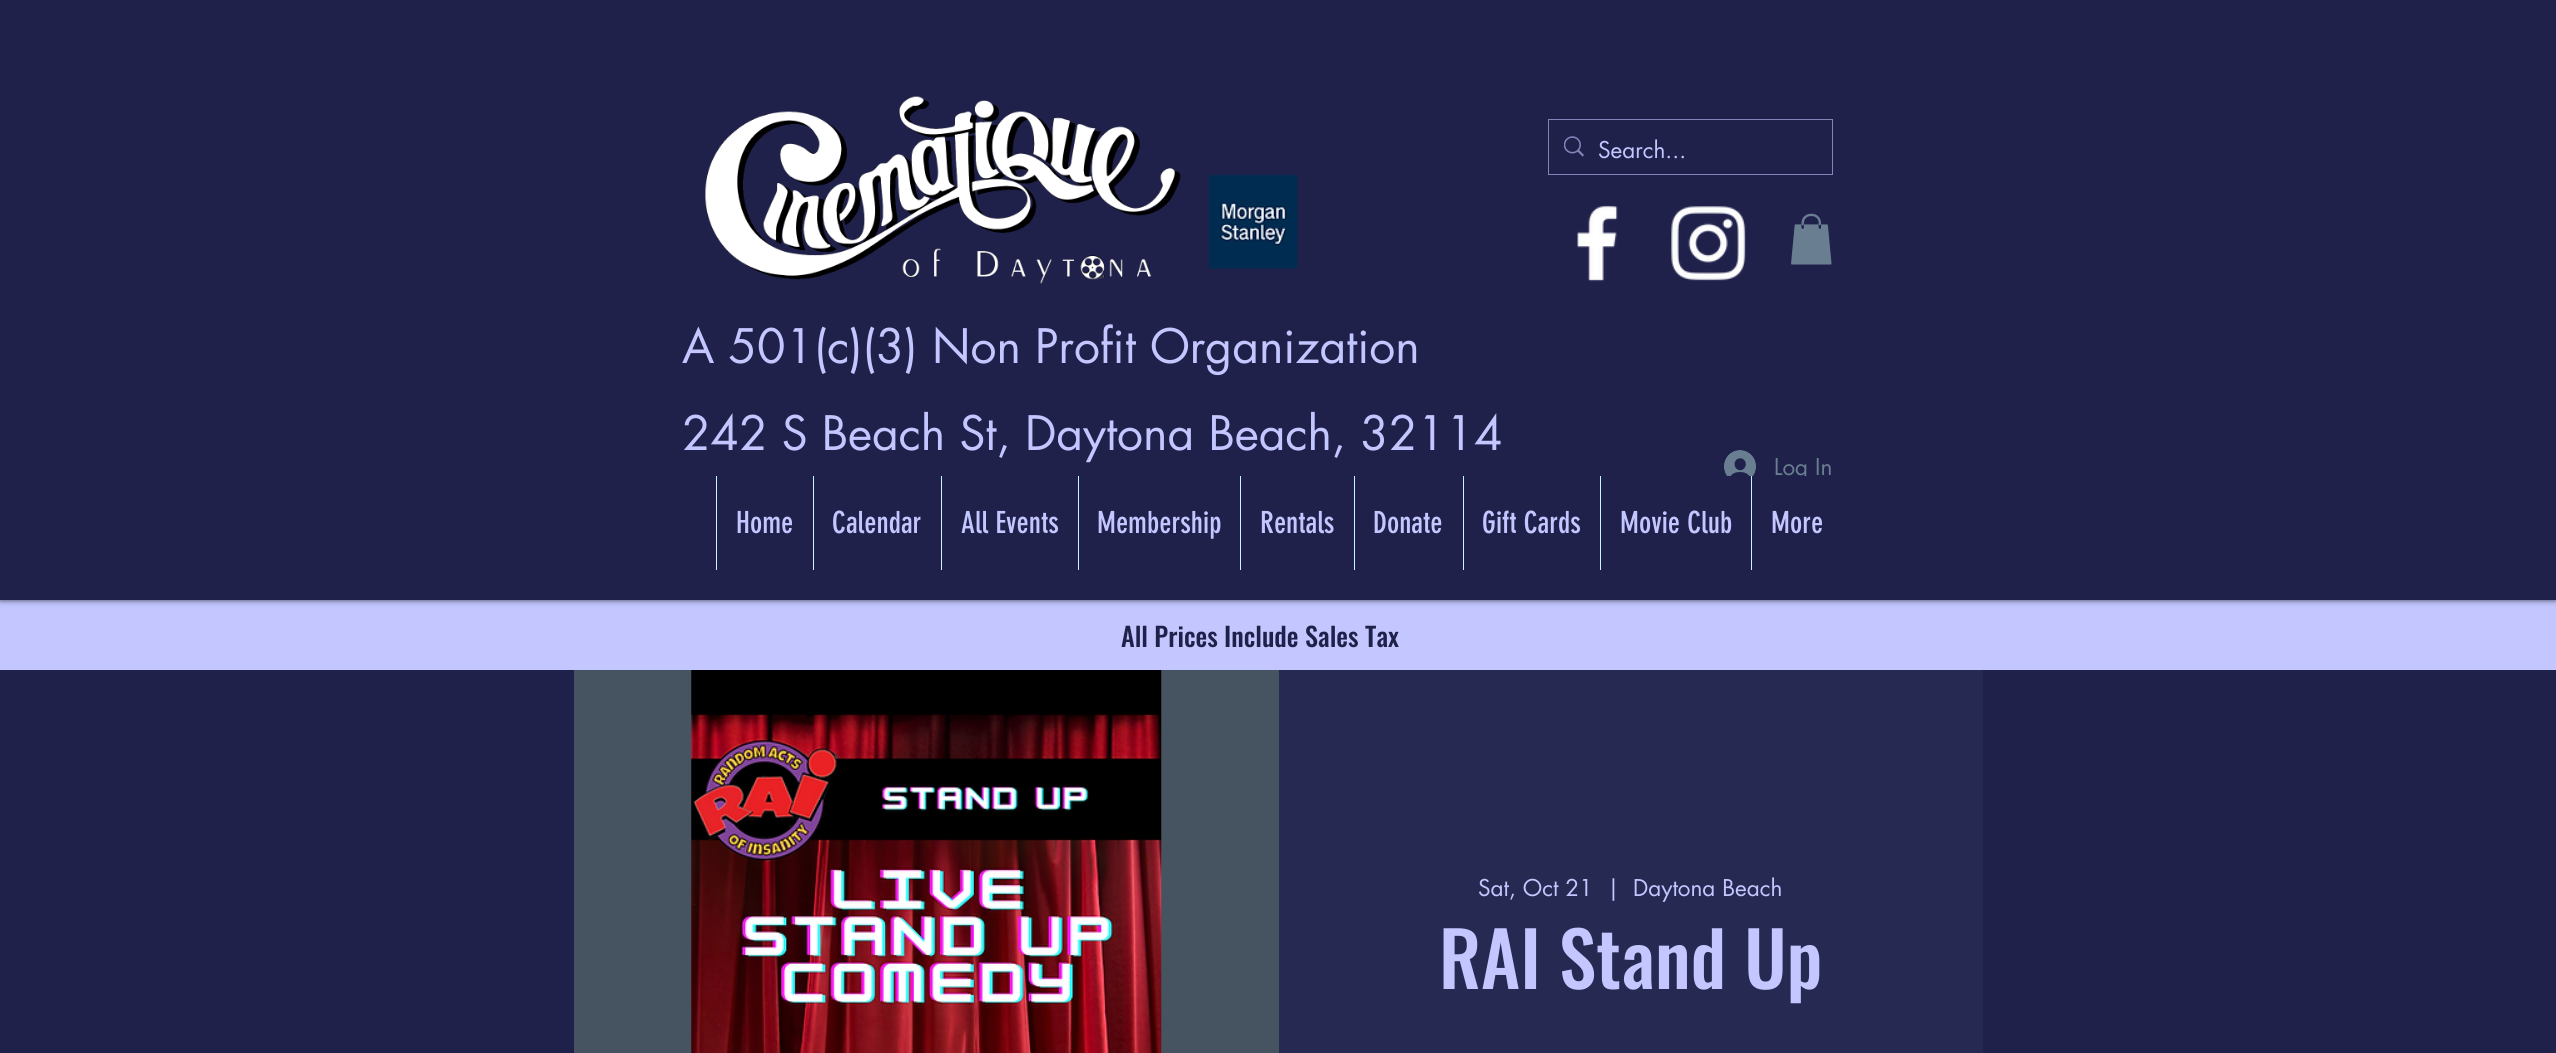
#include <cairo.h>
#include <math.h>
#include <stddef.h>

typedef struct { double x, y; const char *s; } line_t;

static void ink(cairo_t *ctx, unsigned color) {
    cairo_set_source_rgb(ctx, (color >> 16) / 255.0, (color >> 8 & 255) / 255.0, (color & 255) / 255.0);
}

static void round_path(cairo_t *ctx, double x, double y, double w, double h, double r) {
    cairo_new_sub_path(ctx);
    cairo_arc(ctx, x + w - r, y + h - r, r, 0, M_PI / 2);
    cairo_arc(ctx, x + r, y + h - r, r, M_PI / 2, M_PI);
    cairo_arc(ctx, x + r, y + r, r, M_PI, 1.5 * M_PI);
    cairo_arc(ctx, x + w - r, y + r, r, 1.5 * M_PI, 2 * M_PI);
    cairo_close_path(ctx);
}

static void blur_box(cairo_t *ctx, double x, double y, double w, double h, double r, double blur, double alpha) {
    cairo_push_group_with_content(ctx, CAIRO_CONTENT_ALPHA);
    cairo_set_operator(ctx, CAIRO_OPERATOR_SOURCE);
    for (int i = 15; i >= -15 && fmin(w, h) + blur * i / 3 > 0; i -= 2) {
        double e = blur * i / 6;
        cairo_set_source_rgba(ctx, 0, 0, 0, alpha * erfc((i - 1) / 8.5) / 2);
        round_path(ctx, x - e, y - e, w + 2 * e, h + 2 * e, fmax(0, fmin(r + e + blur * .6, fmin(w, h) / 2 + e)));
        cairo_fill(ctx);
    }
    cairo_pattern_t *soft = cairo_pop_group(ctx);
    cairo_mask(ctx, soft);
    cairo_pattern_destroy(soft);
}

static void paste(cairo_t *ctx, const char *path, double x, double y, double w, double h) {
    cairo_surface_t *image = cairo_image_surface_create_from_png(path);
    cairo_save(ctx);
    cairo_set_source_surface(ctx, image, x, y);
    cairo_rectangle(ctx, x, y, w, h);
    cairo_fill(ctx);
    cairo_restore(ctx);
    cairo_surface_destroy(image);
}

int main(void) {
    cairo_surface_t *surface = cairo_image_surface_create(CAIRO_FORMAT_RGB24, 2556, 1053);
    cairo_t *ctx = cairo_create(surface);
    cairo_font_options_t *options = cairo_font_options_create();
    cairo_font_options_set_hint_metrics(options, CAIRO_HINT_METRICS_OFF);
    cairo_font_options_set_hint_style(options, CAIRO_HINT_STYLE_NONE);
    cairo_set_font_options(ctx, options);
    cairo_set_miter_limit(ctx, 4);
    ink(ctx, 0x1F214B);
    cairo_paint(ctx);
    ink(ctx, 0xC4C7FF);
    cairo_rectangle(ctx, 0, 600, 2556, 70);
    cairo_fill(ctx);
    ink(ctx, 0x000000);
    blur_box(ctx, 0, 0, 2556, 600, 0, 3, 0.7);
    ink(ctx, 0x1F214B);
    cairo_rectangle(ctx, 0, 0, 2556, 600);
    cairo_fill(ctx);
    paste(ctx, "media/1.png", 705, 96, 476, 188);
    cairo_rectangle(ctx, 1548.5, 119.5, 284, 55);
    ink(ctx, 0x8285B7);
    cairo_set_line_width(ctx, 1);
    cairo_stroke(ctx);
    paste(ctx, "media/2.png", 1564, 136, 20, 21);
    cairo_select_font_face(ctx, "futura", CAIRO_FONT_SLANT_NORMAL, CAIRO_FONT_WEIGHT_NORMAL);
    cairo_set_font_size(ctx, 22.5);
    ink(ctx, 0xC4C7FF);
    cairo_move_to(ctx, 1598, 158);
    cairo_show_text(ctx, "Search...");
    paste(ctx, "media/3.png", 1209, 175, 89, 94);
    paste(ctx, "media/4.png", 1577, 205, 41, 77);
    paste(ctx, "media/5.png", 1671, 206, 75, 75);
    paste(ctx, "media/6.png", 1791, 213, 41, 52);
    cairo_set_font_size(ctx, 46.25);
    cairo_move_to(ctx, 682, 363);
    cairo_show_text(ctx, "A 501(c)(3) Non Profit Organization");
    cairo_move_to(ctx, 682, 450);
    cairo_show_text(ctx, "242 S Beach St, Daytona Beach, 32114");
    paste(ctx, "media/7.png", 1724, 450, 32, 26);
    cairo_set_font_size(ctx, 22.5);
    ink(ctx, 0x697E91);
    cairo_move_to(ctx, 1774, 475);
    cairo_show_text(ctx, "Log In");
    ink(ctx, 0x1F214B);
    cairo_rectangle(ctx, 1795, 476, 11, 5);
    cairo_fill(ctx);
    ink(ctx, 0xC6F5FF);
    cairo_rectangle(ctx, 716, 476, 1, 94);
    cairo_fill(ctx);
    cairo_select_font_face(ctx, "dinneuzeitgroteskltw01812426", CAIRO_FONT_SLANT_NORMAL, CAIRO_FONT_WEIGHT_NORMAL);
    cairo_set_font_size(ctx, 30);
    ink(ctx, 0xC4C7FF);
    cairo_move_to(ctx, 736, 533);
    cairo_show_text(ctx, "Home");
    ink(ctx, 0xC6F5FF);
    cairo_rectangle(ctx, 813, 476, 1, 94);
    cairo_fill(ctx);
    ink(ctx, 0xC4C7FF);
    cairo_move_to(ctx, 832, 533);
    cairo_show_text(ctx, "Calendar");
    ink(ctx, 0xC6F5FF);
    cairo_rectangle(ctx, 941, 476, 1, 94);
    cairo_fill(ctx);
    ink(ctx, 0xC4C7FF);
    cairo_move_to(ctx, 961, 533);
    cairo_show_text(ctx, "All Events");
    ink(ctx, 0xC6F5FF);
    cairo_rectangle(ctx, 1078, 476, 1, 94);
    cairo_fill(ctx);
    ink(ctx, 0xC4C7FF);
    cairo_move_to(ctx, 1097, 533);
    cairo_show_text(ctx, "Membership");
    ink(ctx, 0xC6F5FF);
    cairo_rectangle(ctx, 1240, 476, 1, 94);
    cairo_fill(ctx);
    ink(ctx, 0xC4C7FF);
    cairo_move_to(ctx, 1260, 533);
    cairo_show_text(ctx, "Rentals");
    ink(ctx, 0xC6F5FF);
    cairo_rectangle(ctx, 1354, 476, 1, 94);
    cairo_fill(ctx);
    ink(ctx, 0xC4C7FF);
    cairo_move_to(ctx, 1373, 533);
    cairo_show_text(ctx, "Donate");
    ink(ctx, 0xC6F5FF);
    cairo_rectangle(ctx, 1463, 476, 1, 94);
    cairo_fill(ctx);
    ink(ctx, 0xC4C7FF);
    cairo_move_to(ctx, 1482, 533);
    cairo_show_text(ctx, "Gift Cards");
    ink(ctx, 0xC6F5FF);
    cairo_rectangle(ctx, 1600, 476, 1, 94);
    cairo_fill(ctx);
    ink(ctx, 0xC4C7FF);
    cairo_move_to(ctx, 1620, 533);
    cairo_show_text(ctx, "Movie Club");
    ink(ctx, 0xC6F5FF);
    cairo_rectangle(ctx, 1751, 476, 1, 94);
    cairo_fill(ctx);
    ink(ctx, 0xC4C7FF);
    cairo_move_to(ctx, 1771, 533);
    cairo_show_text(ctx, "More");
    cairo_select_font_face(ctx, "Oswald Medium", CAIRO_FONT_SLANT_NORMAL, CAIRO_FONT_WEIGHT_NORMAL);
    cairo_set_font_size(ctx, 26.25);
    ink(ctx, 0x1F214B);
    cairo_move_to(ctx, 1121, 647);
    cairo_show_text(ctx, "All Prices Include Sales Tax");
    ink(ctx, 0x465461);
    cairo_rectangle(ctx, 574, 670, 705, 383);
    cairo_fill(ctx);
    paste(ctx, "media/8.png", 691, 670, 471, 383);
    ink(ctx, 0x262A52);
    cairo_rectangle(ctx, 1279, 670, 704, 383);
    cairo_fill(ctx);
    cairo_select_font_face(ctx, "futura", CAIRO_FONT_SLANT_NORMAL, CAIRO_FONT_WEIGHT_NORMAL);
    cairo_set_font_size(ctx, 22.5);
    ink(ctx, 0xC4C7FF);
    {
        static const line_t items[] = {
            {1478, 896, "Sat, Oct 21"},
            {1607, 896, "|"},
            {1633, 896, "Daytona Beach"},
        };
        for (size_t i = 0; i < sizeof items / sizeof *items; i++) {
            cairo_move_to(ctx, items[i].x, items[i].y);
            cairo_show_text(ctx, items[i].s);
        }
    }
    cairo_select_font_face(ctx, "Oswald Medium", CAIRO_FONT_SLANT_NORMAL, CAIRO_FONT_WEIGHT_NORMAL);
    cairo_set_font_size(ctx, 75);
    cairo_move_to(ctx, 1439, 989);
    cairo_show_text(ctx, "RAI Stand Up");
    cairo_surface_write_to_png(surface, "image.png");
    cairo_font_options_destroy(options);
    cairo_destroy(ctx);
    cairo_surface_destroy(surface);
    return 0;
}
